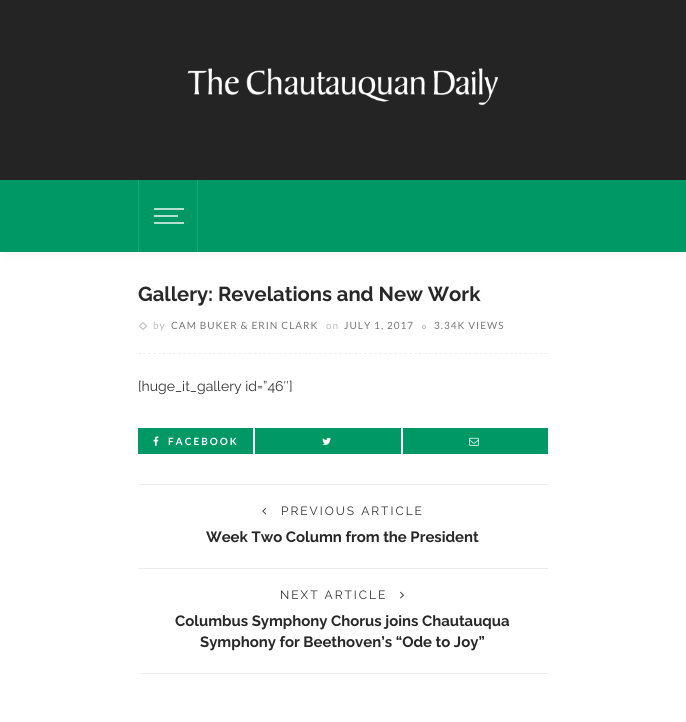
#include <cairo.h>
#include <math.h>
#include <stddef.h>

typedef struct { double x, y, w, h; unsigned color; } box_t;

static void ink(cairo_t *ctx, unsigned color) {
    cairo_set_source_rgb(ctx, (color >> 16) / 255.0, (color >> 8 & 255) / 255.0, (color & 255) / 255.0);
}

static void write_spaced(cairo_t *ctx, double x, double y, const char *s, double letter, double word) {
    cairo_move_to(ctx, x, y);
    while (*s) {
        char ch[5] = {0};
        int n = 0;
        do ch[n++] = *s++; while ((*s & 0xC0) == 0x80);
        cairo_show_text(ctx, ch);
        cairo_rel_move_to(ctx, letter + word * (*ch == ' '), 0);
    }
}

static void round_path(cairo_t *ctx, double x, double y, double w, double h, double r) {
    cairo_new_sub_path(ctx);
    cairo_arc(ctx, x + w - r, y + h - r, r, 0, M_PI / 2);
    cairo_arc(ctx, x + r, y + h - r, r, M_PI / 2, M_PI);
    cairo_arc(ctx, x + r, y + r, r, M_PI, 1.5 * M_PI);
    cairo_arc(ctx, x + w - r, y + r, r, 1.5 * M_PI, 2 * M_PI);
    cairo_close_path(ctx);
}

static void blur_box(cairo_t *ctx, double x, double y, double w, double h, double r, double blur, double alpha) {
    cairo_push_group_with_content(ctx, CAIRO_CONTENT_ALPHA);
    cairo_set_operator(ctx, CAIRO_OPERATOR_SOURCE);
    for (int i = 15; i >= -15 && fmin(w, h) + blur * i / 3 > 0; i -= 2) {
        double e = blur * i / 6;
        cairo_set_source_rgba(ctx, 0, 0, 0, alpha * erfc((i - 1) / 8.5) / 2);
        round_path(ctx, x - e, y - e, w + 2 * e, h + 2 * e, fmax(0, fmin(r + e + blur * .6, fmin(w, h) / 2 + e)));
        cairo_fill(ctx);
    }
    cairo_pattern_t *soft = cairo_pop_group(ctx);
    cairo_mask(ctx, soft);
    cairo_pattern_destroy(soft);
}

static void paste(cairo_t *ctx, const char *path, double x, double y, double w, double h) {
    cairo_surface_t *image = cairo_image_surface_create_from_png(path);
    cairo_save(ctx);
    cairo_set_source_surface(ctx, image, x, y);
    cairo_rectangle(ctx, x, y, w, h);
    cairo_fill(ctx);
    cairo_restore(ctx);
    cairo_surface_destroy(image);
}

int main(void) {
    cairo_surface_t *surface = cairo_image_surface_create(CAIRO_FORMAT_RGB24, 686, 722);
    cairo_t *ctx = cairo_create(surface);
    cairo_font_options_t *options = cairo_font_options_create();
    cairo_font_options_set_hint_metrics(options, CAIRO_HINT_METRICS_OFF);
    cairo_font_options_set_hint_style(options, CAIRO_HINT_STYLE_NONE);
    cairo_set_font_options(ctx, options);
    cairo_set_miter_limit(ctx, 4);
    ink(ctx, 0xFFFFFF);
    cairo_paint(ctx);
    ink(ctx, 0x242424);
    cairo_rectangle(ctx, 0, 0, 686, 180);
    cairo_fill(ctx);
    paste(ctx, "media/1.png", 187, 68, 312, 38);
    ink(ctx, 0x000000);
    blur_box(ctx, 3, 186, 682, 68, 0, 5, 0.05);
    {
        static const box_t items[] = {
            {0, 180, 686, 72, 0x009966},
            {197, 180, 1, 72, 0x1AA375},
            {138, 180, 1, 72, 0x1AA375},
            {154, 215, 24, 2, 0xB3E0D1},
            {154, 208, 30, 2, 0xB3E0D1},
            {154, 222, 30, 2, 0xB3E0D1},
        };
        for (size_t i = 0; i < sizeof items / sizeof *items; i++) {
            ink(ctx, items[i].color);
            cairo_rectangle(ctx, items[i].x, items[i].y, items[i].w, items[i].h);
            cairo_fill(ctx);
        }
    }
    cairo_new_path(ctx);
    cairo_move_to(ctx, 138, 353.5);
    cairo_line_to(ctx, 548, 353.5);
    ink(ctx, 0xEEEEEE);
    cairo_set_line_width(ctx, 1);
    cairo_set_dash(ctx, (double[]){3, 2.02}, 2, 0);
    cairo_stroke(ctx);
    cairo_select_font_face(ctx, "Raleway", CAIRO_FONT_SLANT_NORMAL, CAIRO_FONT_WEIGHT_BOLD);
    cairo_set_font_size(ctx, 20.2);
    ink(ctx, 0x282828);
    cairo_move_to(ctx, 138, 301);
    cairo_show_text(ctx, "Gallery: Revelations and New Work");
    cairo_new_path(ctx);
    cairo_move_to(ctx, 143, 322.5);
    cairo_line_to(ctx, 146.5, 326);
    cairo_line_to(ctx, 143, 329.5);
    cairo_line_to(ctx, 139.5, 326);
    cairo_close_path(ctx);
    ink(ctx, 0xBBBBBB);
    cairo_set_dash(ctx, NULL, 0, 0);
    cairo_stroke(ctx);
    cairo_select_font_face(ctx, "Lato", CAIRO_FONT_SLANT_NORMAL, CAIRO_FONT_WEIGHT_NORMAL);
    cairo_set_font_size(ctx, 10);
    write_spaced(ctx, 153, 329, "by", 1, 0);
    ink(ctx, 0x777777);
    write_spaced(ctx, 171, 329, "CAM BUKER & ERIN CLARK", 1, 0);
    ink(ctx, 0xBBBBBB);
    write_spaced(ctx, 326, 329, "on", 1, 0);
    ink(ctx, 0x777777);
    write_spaced(ctx, 344, 329, "JULY 1, 2017", 1, 0);
    cairo_new_path(ctx);
    cairo_arc(ctx, 424, 327, 1.5, 0, 2 * M_PI);
    ink(ctx, 0xBBBBBB);
    cairo_stroke(ctx);
    ink(ctx, 0x777777);
    write_spaced(ctx, 434, 329, "3.34K VIEWS", 1, 0);
    cairo_select_font_face(ctx, "Raleway", CAIRO_FONT_SLANT_NORMAL, CAIRO_FONT_WEIGHT_NORMAL);
    cairo_set_font_size(ctx, 14);
    ink(ctx, 0x333333);
    cairo_move_to(ctx, 138, 391);
    cairo_show_text(ctx, "[huge_it_gallery id=”46″]");
    ink(ctx, 0x009966);
    cairo_rectangle(ctx, 138, 428, 115, 26);
    cairo_fill(ctx);
    paste(ctx, "media/2.png", 153, 436, 6, 10);
    cairo_select_font_face(ctx, "Lato", CAIRO_FONT_SLANT_NORMAL, CAIRO_FONT_WEIGHT_BOLD);
    cairo_set_font_size(ctx, 10);
    ink(ctx, 0xFFFFFF);
    write_spaced(ctx, 168, 445, "FACEBOOK", 2, 0);
    ink(ctx, 0x009966);
    cairo_rectangle(ctx, 255, 428, 146, 26);
    cairo_fill(ctx);
    paste(ctx, "media/3.png", 322, 437, 9, 8);
    cairo_rectangle(ctx, 403, 428, 145, 26);
    cairo_fill(ctx);
    paste(ctx, "media/4.png", 469, 437, 10, 9);
    ink(ctx, 0xEEEEEE);
    cairo_rectangle(ctx, 138, 484, 410, 1);
    cairo_fill(ctx);
    paste(ctx, "media/5.png", 262, 507, 5, 8);
    cairo_select_font_face(ctx, "Raleway", CAIRO_FONT_SLANT_NORMAL, CAIRO_FONT_WEIGHT_NORMAL);
    cairo_set_font_size(ctx, 12);
    ink(ctx, 0x333333);
    write_spaced(ctx, 281, 515, "PREVIOUS ARTICLE", 2, 0);
    cairo_select_font_face(ctx, "Raleway", CAIRO_FONT_SLANT_NORMAL, CAIRO_FONT_WEIGHT_BOLD);
    cairo_set_font_size(ctx, 14.9);
    ink(ctx, 0x282828);
    cairo_move_to(ctx, 206, 542);
    cairo_show_text(ctx, "Week Two Column from the President");
    ink(ctx, 0xEEEEEE);
    cairo_rectangle(ctx, 138, 568, 410, 1);
    cairo_fill(ctx);
    cairo_select_font_face(ctx, "Raleway", CAIRO_FONT_SLANT_NORMAL, CAIRO_FONT_WEIGHT_NORMAL);
    cairo_set_font_size(ctx, 12);
    ink(ctx, 0x333333);
    write_spaced(ctx, 280, 599, "NEXT ARTICLE", 2, 0);
    paste(ctx, "media/6.png", 400, 591, 4, 8);
    cairo_select_font_face(ctx, "Raleway", CAIRO_FONT_SLANT_NORMAL, CAIRO_FONT_WEIGHT_BOLD);
    cairo_set_font_size(ctx, 14.9);
    ink(ctx, 0x282828);
    cairo_move_to(ctx, 175, 626);
    cairo_show_text(ctx, "Columbus Symphony Chorus joins Chautauqua");
    cairo_move_to(ctx, 200, 647);
    cairo_show_text(ctx, "Symphony for Beethoven’s “Ode to Joy”");
    ink(ctx, 0xEEEEEE);
    cairo_rectangle(ctx, 138, 673, 410, 1);
    cairo_fill(ctx);
    cairo_surface_write_to_png(surface, "image.png");
    cairo_font_options_destroy(options);
    cairo_destroy(ctx);
    cairo_surface_destroy(surface);
    return 0;
}
